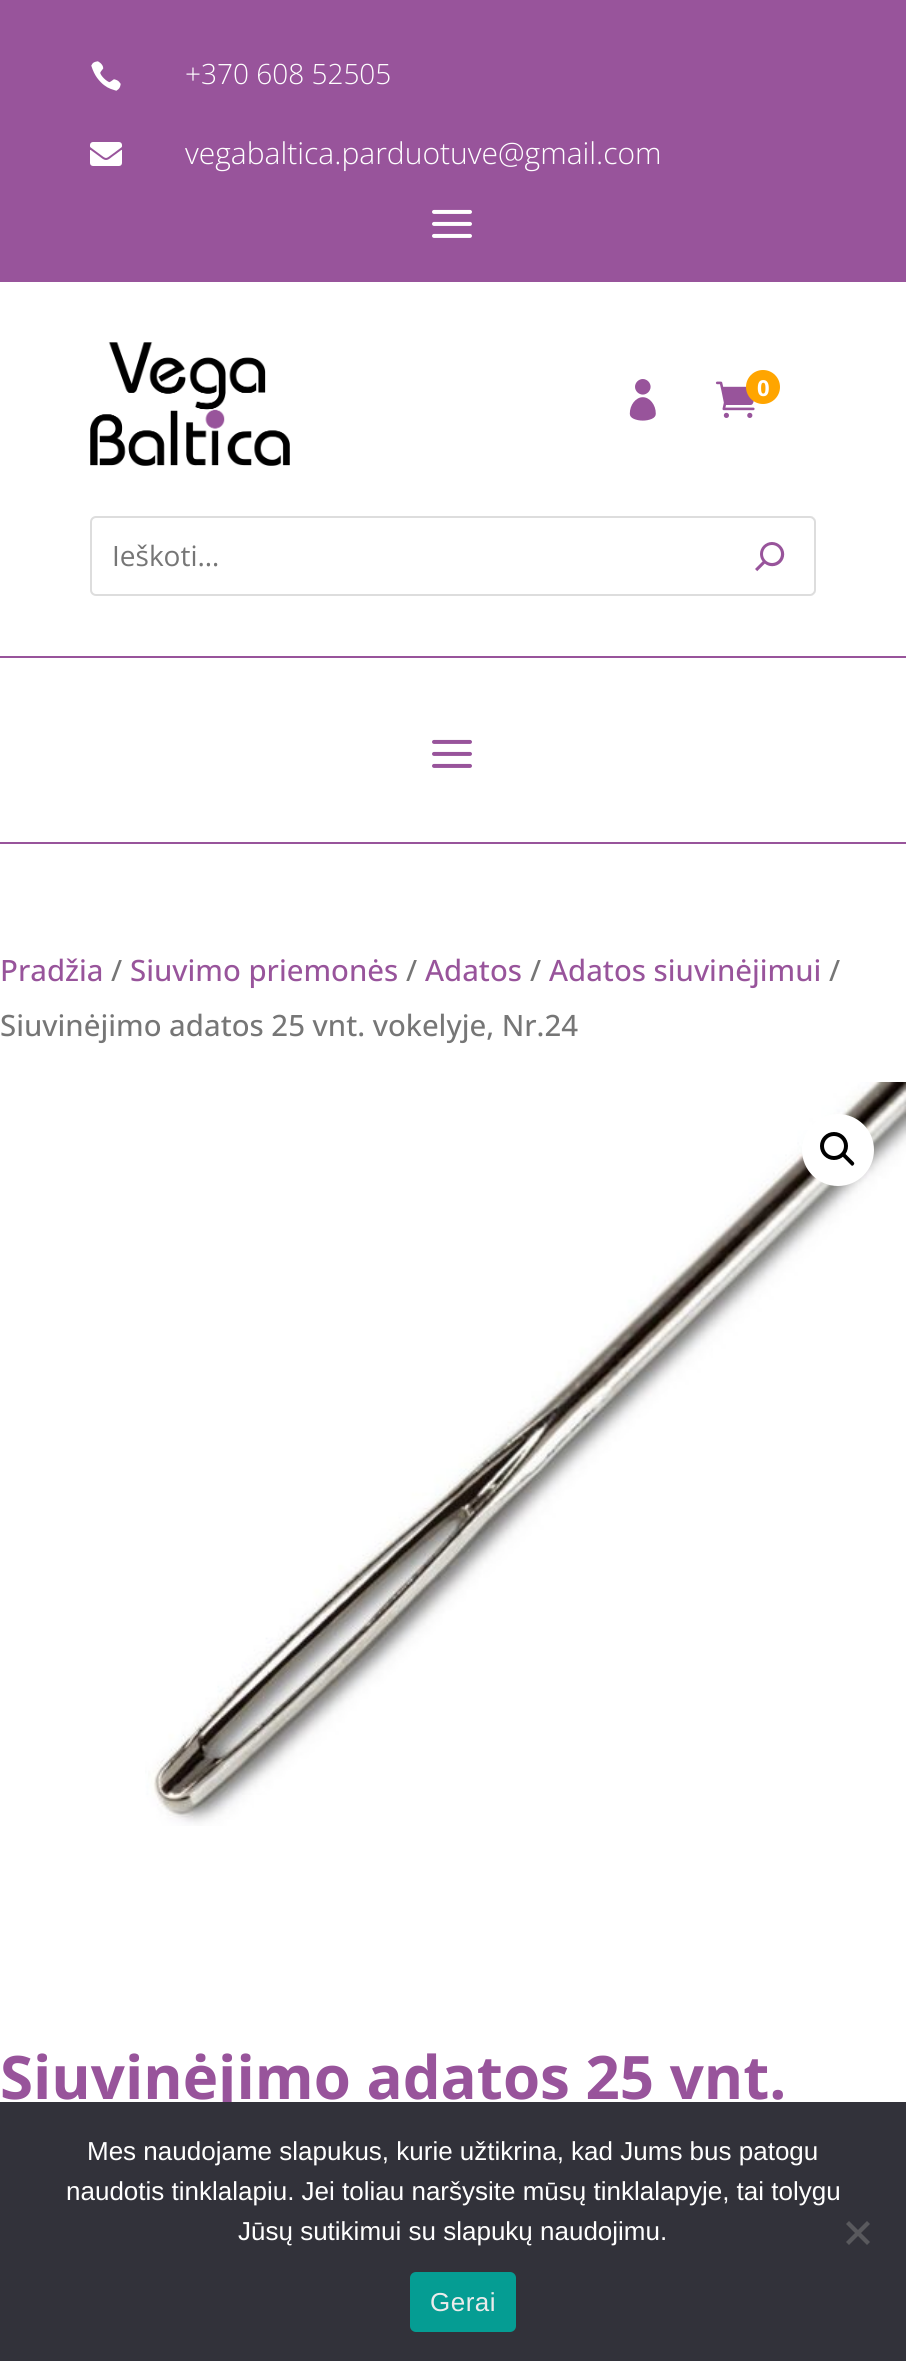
#include <cairo.h>
#include <math.h>
#include <stddef.h>

typedef struct { double x, y; const char *s; } line_t;

static void ink(cairo_t *ctx, unsigned color) {
    cairo_set_source_rgb(ctx, (color >> 16) / 255.0, (color >> 8 & 255) / 255.0, (color & 255) / 255.0);
}

static void write_spaced(cairo_t *ctx, double x, double y, const char *s, double letter, double word) {
    cairo_move_to(ctx, x, y);
    while (*s) {
        char ch[5] = {0};
        int n = 0;
        do ch[n++] = *s++; while ((*s & 0xC0) == 0x80);
        cairo_show_text(ctx, ch);
        cairo_rel_move_to(ctx, letter + word * (*ch == ' '), 0);
    }
}

static void round_path(cairo_t *ctx, double x, double y, double w, double h, double r) {
    cairo_new_sub_path(ctx);
    cairo_arc(ctx, x + w - r, y + h - r, r, 0, M_PI / 2);
    cairo_arc(ctx, x + r, y + h - r, r, M_PI / 2, M_PI);
    cairo_arc(ctx, x + r, y + r, r, M_PI, 1.5 * M_PI);
    cairo_arc(ctx, x + w - r, y + r, r, 1.5 * M_PI, 2 * M_PI);
    cairo_close_path(ctx);
}

static void paste(cairo_t *ctx, const char *path, double x, double y, double w, double h) {
    cairo_surface_t *image = cairo_image_surface_create_from_png(path);
    cairo_save(ctx);
    cairo_set_source_surface(ctx, image, x, y);
    cairo_rectangle(ctx, x, y, w, h);
    cairo_fill(ctx);
    cairo_restore(ctx);
    cairo_surface_destroy(image);
}

int main(void) {
    cairo_surface_t *surface = cairo_image_surface_create(CAIRO_FORMAT_RGB24, 906, 2361);
    cairo_t *ctx = cairo_create(surface);
    cairo_font_options_t *options = cairo_font_options_create();
    cairo_font_options_set_hint_metrics(options, CAIRO_HINT_METRICS_OFF);
    cairo_font_options_set_hint_style(options, CAIRO_HINT_STYLE_NONE);
    cairo_set_font_options(ctx, options);
    cairo_set_miter_limit(ctx, 4);
    ink(ctx, 0xFFFFFF);
    cairo_paint(ctx);
    ink(ctx, 0x98549B);
    cairo_rectangle(ctx, 0, 0, 906, 282);
    cairo_fill(ctx);
    paste(ctx, "media/1.png", 91, 61, 30, 30);
    cairo_select_font_face(ctx, "Open Sans Light", CAIRO_FONT_SLANT_NORMAL, CAIRO_FONT_WEIGHT_NORMAL);
    cairo_set_font_size(ctx, 28);
    ink(ctx, 0xFFFFFF);
    cairo_move_to(ctx, 185, 84);
    cairo_show_text(ctx, "+370 608 52505");
    paste(ctx, "media/2.png", 90, 142, 32, 24);
    cairo_set_font_size(ctx, 30);
    cairo_move_to(ctx, 185, 164);
    cairo_show_text(ctx, "vegabaltica.parduotuve@gmail.com");
    paste(ctx, "media/3.png", 432, 209, 40, 29);
    ink(ctx, 0x98549B);
    cairo_rectangle(ctx, 0, 656, 906, 2);
    cairo_fill(ctx);
    paste(ctx, "media/4.png", 90, 342, 200, 124);
    paste(ctx, "media/5.png", 629, 379, 27, 42);
    paste(ctx, "media/6.png", 715, 381, 40, 37);
    ink(ctx, 0xFFA500);
    cairo_arc(ctx, 763, 387, 17, 0, 2 * M_PI);
    cairo_fill(ctx);
    cairo_select_font_face(ctx, "Open Sans", CAIRO_FONT_SLANT_NORMAL, CAIRO_FONT_WEIGHT_BOLD);
    cairo_set_font_size(ctx, 22);
    ink(ctx, 0xFFFFFF);
    cairo_move_to(ctx, 757, 396);
    cairo_show_text(ctx, "0");
    round_path(ctx, 91, 517, 724, 78, 5);
    ink(ctx, 0xDDDDDD);
    cairo_stroke(ctx);
    cairo_select_font_face(ctx, "Open Sans", CAIRO_FONT_SLANT_NORMAL, CAIRO_FONT_WEIGHT_NORMAL);
    cairo_set_font_size(ctx, 28);
    ink(ctx, 0x767676);
    cairo_move_to(ctx, 112, 566);
    cairo_show_text(ctx, "Ieškoti…");
    ink(ctx, 0xFFFFFF);
    cairo_new_path(ctx);
    cairo_move_to(ctx, 726, 516);
    cairo_line_to(ctx, 810, 516);
    cairo_curve_to(ctx, 813.5, 516, 816, 518.5, 816, 522);
    cairo_line_to(ctx, 816, 590);
    cairo_curve_to(ctx, 816, 593.5, 813.5, 596, 810, 596);
    cairo_line_to(ctx, 726, 596);
    cairo_close_path(ctx);
    cairo_fill(ctx);
    ink(ctx, 0xDDDDDD);
    cairo_set_fill_rule(ctx, CAIRO_FILL_RULE_EVEN_ODD);
    cairo_new_path(ctx);
    cairo_move_to(ctx, 726, 516);
    cairo_line_to(ctx, 810, 516);
    cairo_curve_to(ctx, 813, 516, 816, 519, 816, 522);
    cairo_line_to(ctx, 816, 590);
    cairo_curve_to(ctx, 816, 593, 813, 596, 810, 596);
    cairo_line_to(ctx, 726, 596);
    cairo_close_path(ctx);
    cairo_move_to(ctx, 726, 518);
    cairo_line_to(ctx, 810, 518);
    cairo_curve_to(ctx, 812, 518, 814, 520, 814, 522);
    cairo_line_to(ctx, 814, 590);
    cairo_curve_to(ctx, 814, 592, 812, 594, 810, 594);
    cairo_line_to(ctx, 726, 594);
    cairo_close_path(ctx);
    cairo_fill(ctx);
    paste(ctx, "media/7.png", 755, 542, 30, 30);
    ink(ctx, 0x98549B);
    cairo_rectangle(ctx, 0, 842, 906, 2);
    cairo_fill(ctx);
    paste(ctx, "media/8.png", 432, 739, 40, 29);
    cairo_select_font_face(ctx, "Open Sans Medium", CAIRO_FONT_SLANT_NORMAL, CAIRO_FONT_WEIGHT_NORMAL);
    cairo_set_font_size(ctx, 29.4);
    cairo_move_to(ctx, 0, 981);
    cairo_show_text(ctx, "Pradžia");
    ink(ctx, 0x767676);
    cairo_move_to(ctx, 111, 981);
    cairo_show_text(ctx, "/");
    ink(ctx, 0x98549B);
    cairo_move_to(ctx, 130, 981);
    cairo_show_text(ctx, "Siuvimo priemonės");
    ink(ctx, 0x767676);
    cairo_move_to(ctx, 406, 981);
    cairo_show_text(ctx, "/");
    ink(ctx, 0x98549B);
    cairo_move_to(ctx, 425, 981);
    cairo_show_text(ctx, "Adatos");
    ink(ctx, 0x767676);
    cairo_move_to(ctx, 530, 981);
    cairo_show_text(ctx, "/");
    ink(ctx, 0x98549B);
    cairo_move_to(ctx, 549, 981);
    cairo_show_text(ctx, "Adatos siuvinėjimui");
    ink(ctx, 0x767676);
    cairo_move_to(ctx, 829, 981);
    cairo_show_text(ctx, "/");
    cairo_move_to(ctx, 0, 1036);
    cairo_show_text(ctx, "Siuvinėjimo adatos 25 vnt. vokelyje, Nr.24");
    paste(ctx, "media/9.png", 145, 1082, 761, 744);
    ink(ctx, 0xFFFFFF);
    cairo_arc(ctx, 838, 1150, 36, 0, 2 * M_PI);
    cairo_fill(ctx);
    cairo_arc(ctx, 834, 1146, 12, 0, 2 * M_PI);
    ink(ctx, 0x000000);
    cairo_set_line_width(ctx, 4);
    cairo_stroke(ctx);
    cairo_set_fill_rule(ctx, CAIRO_FILL_RULE_WINDING);
    cairo_new_path(ctx);
    cairo_move_to(ctx, 842.5, 1153.5);
    cairo_curve_to(ctx, 843, 1153, 844.5, 1153, 845, 1153.5);
    cairo_line_to(ctx, 853.5, 1162);
    cairo_curve_to(ctx, 854.5, 1163, 854.5, 1164, 853.5, 1165);
    cairo_curve_to(ctx, 853, 1166, 851.5, 1166, 851, 1165);
    cairo_line_to(ctx, 842.5, 1156.5);
    cairo_curve_to(ctx, 841.5, 1155.5, 841.5, 1154.5, 842.5, 1153.5);
    cairo_close_path(ctx);
    cairo_fill(ctx);
    cairo_select_font_face(ctx, "Open Sans", CAIRO_FONT_SLANT_NORMAL, CAIRO_FONT_WEIGHT_BOLD);
    cairo_set_font_size(ctx, 60);
    ink(ctx, 0x98549B);
    cairo_move_to(ctx, 0, 2099);
    cairo_show_text(ctx, "Siuvinėjimo adatos 25 vnt.");
    ink(ctx, 0x32323A);
    cairo_rectangle(ctx, 0, 2102, 906, 259);
    cairo_fill(ctx);
    cairo_select_font_face(ctx, "Liberation Sans", CAIRO_FONT_SLANT_NORMAL, CAIRO_FONT_WEIGHT_NORMAL);
    cairo_set_font_size(ctx, 26);
    ink(ctx, 0xFFFFFF);
    {
        static const line_t items[] = {
            {87, 2160, "Mes naudojame slapukus, kurie užtikrina, kad Jums bus patogu"},
            {66, 2200, "naudotis tinklalapiu. Jei toliau naršysite mūsų tinklalapyje, tai tolygu"},
            {238, 2240, "Jūsų sutikimui su slapukų naudojimu."},
        };
        for (size_t i = 0; i < sizeof items / sizeof *items; i++) {
            cairo_move_to(ctx, items[i].x, items[i].y);
            cairo_show_text(ctx, items[i].s);
        }
    }
    ink(ctx, 0x59595D);
    cairo_new_path(ctx);
    cairo_move_to(ctx, 867, 2221);
    cairo_line_to(ctx, 870, 2224);
    cairo_line_to(ctx, 849, 2245);
    cairo_line_to(ctx, 846, 2242);
    cairo_close_path(ctx);
    cairo_fill(ctx);
    cairo_new_path(ctx);
    cairo_move_to(ctx, 846, 2224);
    cairo_line_to(ctx, 849, 2221);
    cairo_line_to(ctx, 870, 2242);
    cairo_line_to(ctx, 867, 2245);
    cairo_close_path(ctx);
    cairo_fill(ctx);
    ink(ctx, 0x059D93);
    round_path(ctx, 410, 2272, 106, 60, 6);
    cairo_fill(ctx);
    ink(ctx, 0xEBEBEB);
    write_spaced(ctx, 430, 2311, "Gerai", 0.5, 0);
    cairo_surface_write_to_png(surface, "image.png");
    cairo_font_options_destroy(options);
    cairo_destroy(ctx);
    cairo_surface_destroy(surface);
    return 0;
}
